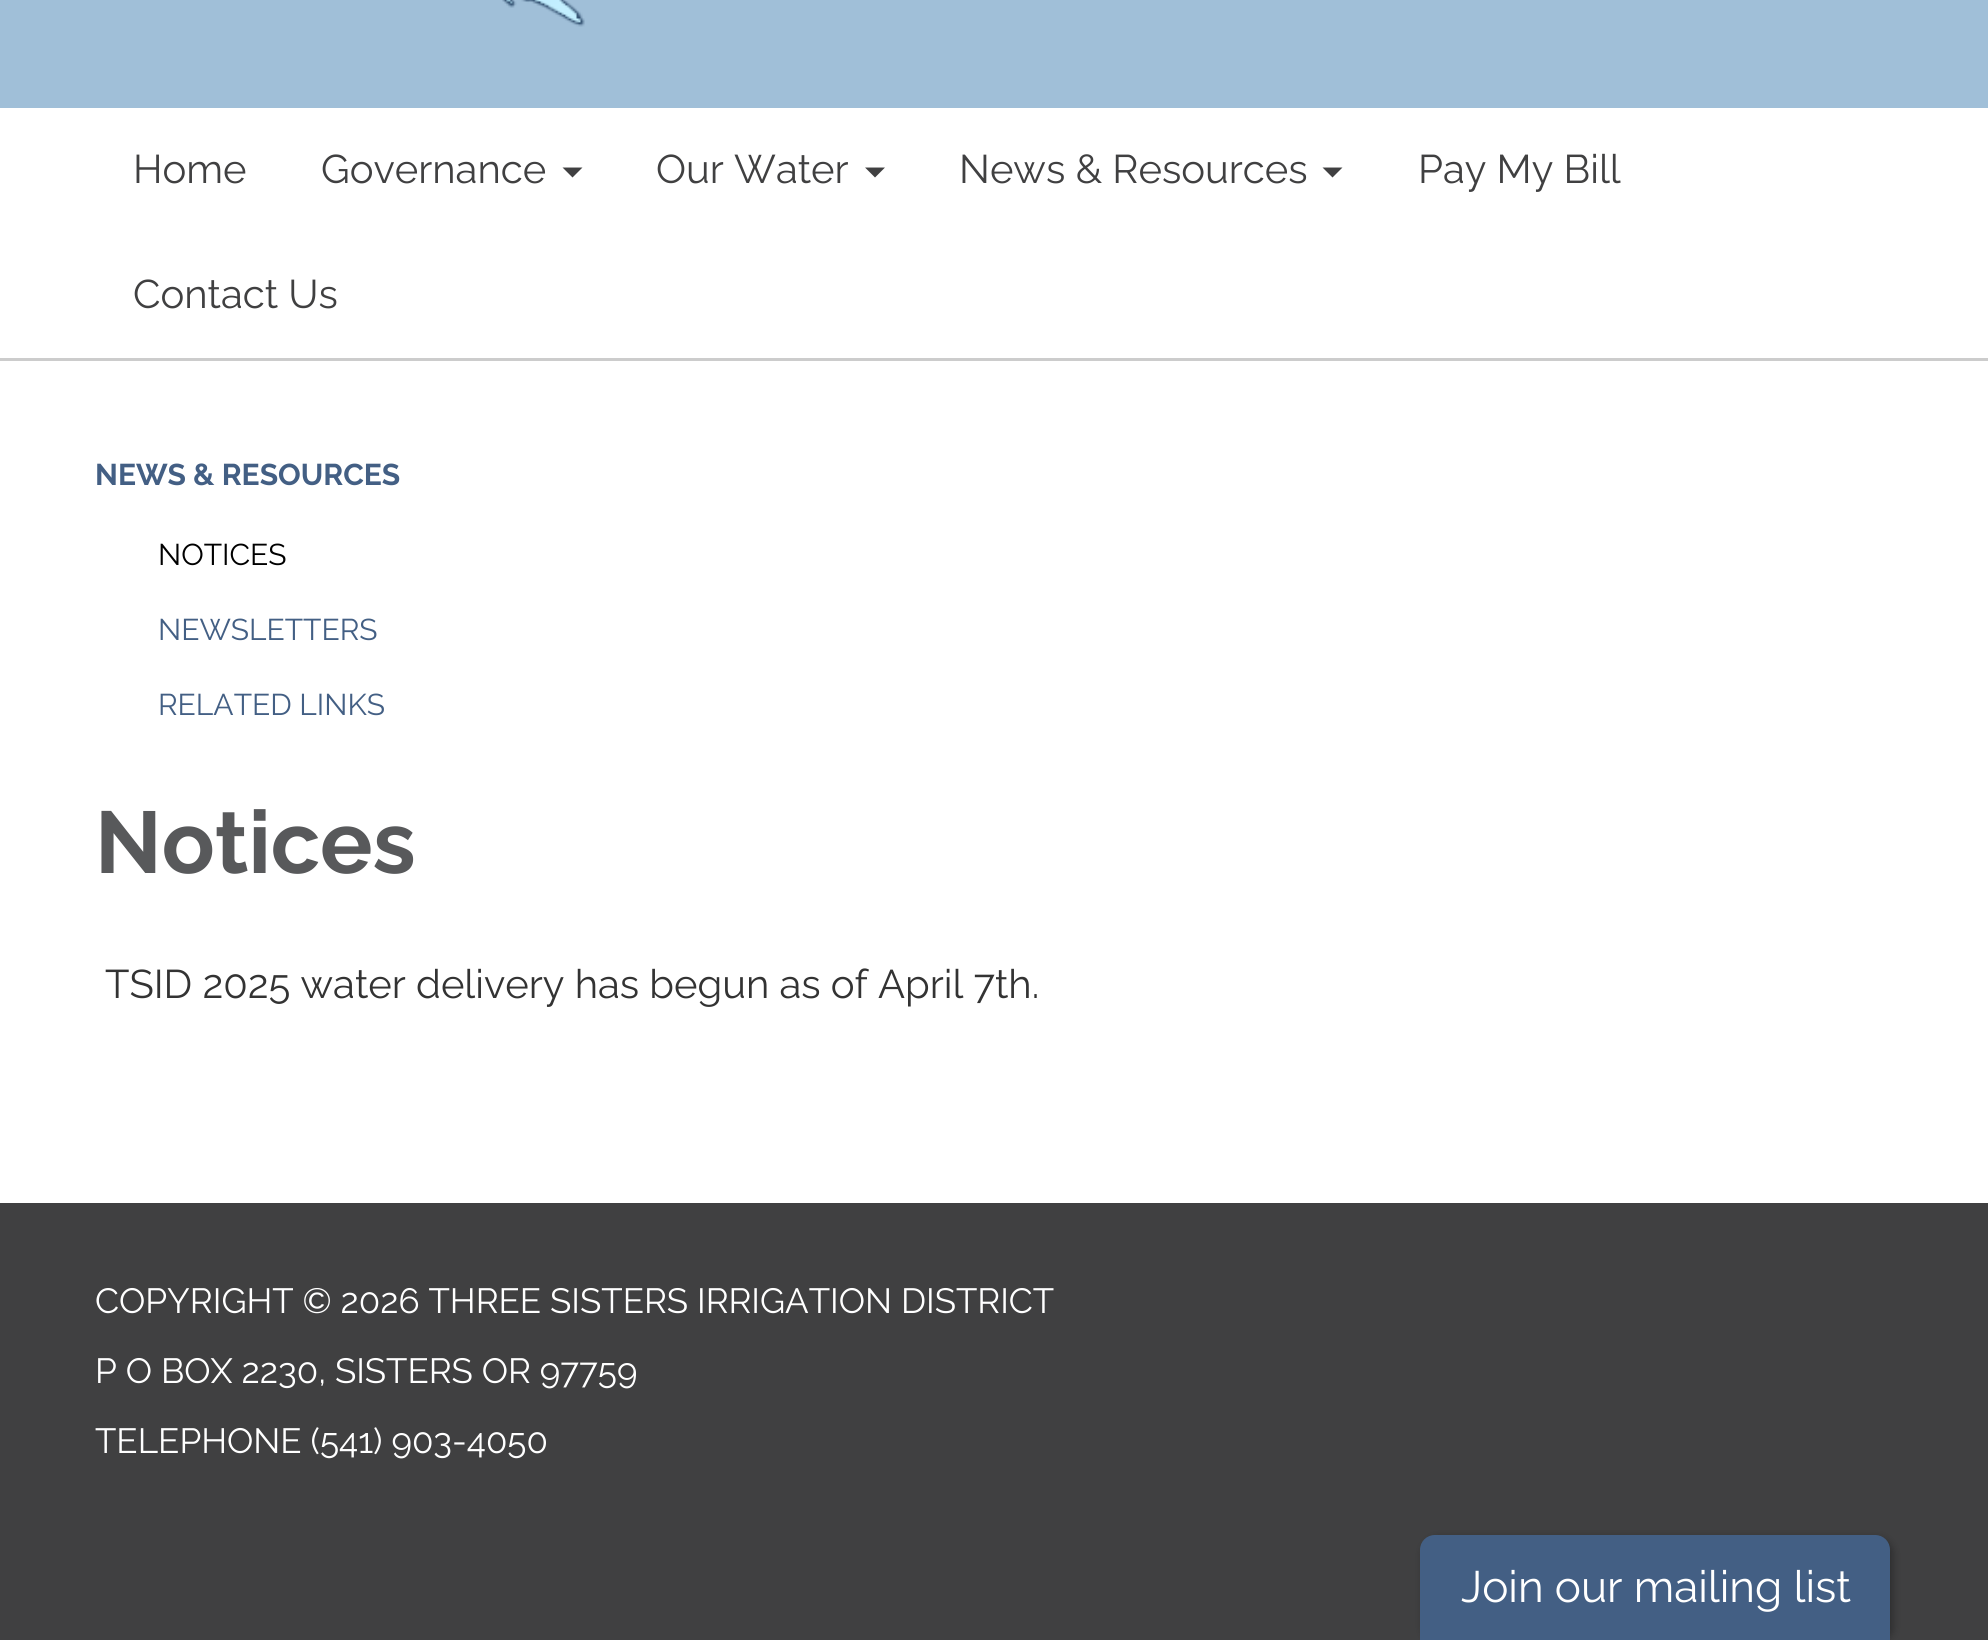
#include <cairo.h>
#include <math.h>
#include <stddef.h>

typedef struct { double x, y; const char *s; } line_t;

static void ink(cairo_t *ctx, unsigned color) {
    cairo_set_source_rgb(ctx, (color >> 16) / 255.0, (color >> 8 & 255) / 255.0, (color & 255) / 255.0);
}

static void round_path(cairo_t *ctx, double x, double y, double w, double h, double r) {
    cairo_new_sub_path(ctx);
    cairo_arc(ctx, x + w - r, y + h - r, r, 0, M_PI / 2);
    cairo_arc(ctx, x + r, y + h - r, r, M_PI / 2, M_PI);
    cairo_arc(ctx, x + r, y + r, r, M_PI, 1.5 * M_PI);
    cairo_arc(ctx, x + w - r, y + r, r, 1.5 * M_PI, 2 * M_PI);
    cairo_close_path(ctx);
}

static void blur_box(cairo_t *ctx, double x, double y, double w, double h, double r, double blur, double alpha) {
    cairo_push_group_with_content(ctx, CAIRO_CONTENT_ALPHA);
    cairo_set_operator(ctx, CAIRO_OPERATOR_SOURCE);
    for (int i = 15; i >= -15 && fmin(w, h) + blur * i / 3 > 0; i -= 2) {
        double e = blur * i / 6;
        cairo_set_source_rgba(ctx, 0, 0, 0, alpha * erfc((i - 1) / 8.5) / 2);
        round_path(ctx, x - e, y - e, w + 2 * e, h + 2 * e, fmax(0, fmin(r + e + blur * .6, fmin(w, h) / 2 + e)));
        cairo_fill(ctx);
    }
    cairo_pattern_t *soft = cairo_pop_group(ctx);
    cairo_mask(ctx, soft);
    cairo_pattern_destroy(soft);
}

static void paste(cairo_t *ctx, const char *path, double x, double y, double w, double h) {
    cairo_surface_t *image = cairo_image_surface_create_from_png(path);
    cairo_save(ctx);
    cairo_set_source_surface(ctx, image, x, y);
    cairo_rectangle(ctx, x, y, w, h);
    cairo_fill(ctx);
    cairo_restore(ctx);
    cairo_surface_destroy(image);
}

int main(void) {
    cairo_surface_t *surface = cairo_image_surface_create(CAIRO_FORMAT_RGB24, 1988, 1640);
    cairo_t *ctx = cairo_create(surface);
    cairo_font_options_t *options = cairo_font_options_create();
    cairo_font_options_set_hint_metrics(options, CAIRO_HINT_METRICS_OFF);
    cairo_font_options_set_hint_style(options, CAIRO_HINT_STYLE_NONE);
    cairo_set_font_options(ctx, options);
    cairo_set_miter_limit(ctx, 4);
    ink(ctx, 0x404041);
    cairo_paint(ctx);
    ink(ctx, 0xA0BFD8);
    cairo_rectangle(ctx, 0, 0, 1988, 108);
    cairo_fill(ctx);
    paste(ctx, "media/1.png", 502, 0, 83, 27);
    ink(ctx, 0xFFFFFF);
    cairo_rectangle(ctx, 0, 108, 1988, 250);
    cairo_fill(ctx);
    cairo_select_font_face(ctx, "Raleway", CAIRO_FONT_SLANT_NORMAL, CAIRO_FONT_WEIGHT_NORMAL);
    cairo_set_font_size(ctx, 40);
    ink(ctx, 0x404041);
    cairo_move_to(ctx, 133, 183);
    cairo_show_text(ctx, "Home");
    cairo_move_to(ctx, 321, 183);
    cairo_show_text(ctx, "Governance");
    cairo_new_path(ctx);
    cairo_move_to(ctx, 562.5, 167.5);
    cairo_line_to(ctx, 582.5, 167.5);
    cairo_line_to(ctx, 572.5, 177.5);
    cairo_close_path(ctx);
    cairo_fill(ctx);
    cairo_move_to(ctx, 656, 183);
    cairo_show_text(ctx, "Our Water");
    cairo_new_path(ctx);
    cairo_move_to(ctx, 865, 167.5);
    cairo_line_to(ctx, 885, 167.5);
    cairo_line_to(ctx, 875, 177.5);
    cairo_close_path(ctx);
    cairo_fill(ctx);
    cairo_move_to(ctx, 959, 183);
    cairo_show_text(ctx, "News & Resources");
    cairo_new_path(ctx);
    cairo_move_to(ctx, 1322.5, 167.5);
    cairo_line_to(ctx, 1342.5, 167.5);
    cairo_line_to(ctx, 1332.5, 177.5);
    cairo_close_path(ctx);
    cairo_fill(ctx);
    cairo_move_to(ctx, 1418, 183);
    cairo_show_text(ctx, "Pay My Bill");
    cairo_move_to(ctx, 133, 308);
    cairo_show_text(ctx, "Contact Us");
    ink(ctx, 0xFFFFFF);
    cairo_rectangle(ctx, 0, 361, 1988, 842);
    cairo_fill(ctx);
    ink(ctx, 0xCCCCCC);
    cairo_rectangle(ctx, 0, 358, 1988, 3);
    cairo_fill(ctx);
    cairo_select_font_face(ctx, "Raleway", CAIRO_FONT_SLANT_NORMAL, CAIRO_FONT_WEIGHT_BOLD);
    cairo_set_font_size(ctx, 30);
    ink(ctx, 0x435F84);
    cairo_move_to(ctx, 95, 485);
    cairo_show_text(ctx, "NEWS & RESOURCES");
    cairo_select_font_face(ctx, "Raleway", CAIRO_FONT_SLANT_NORMAL, CAIRO_FONT_WEIGHT_NORMAL);
    ink(ctx, 0x000000);
    cairo_move_to(ctx, 158, 565);
    cairo_show_text(ctx, "NOTICES");
    ink(ctx, 0x435F84);
    cairo_move_to(ctx, 158, 640);
    cairo_show_text(ctx, "NEWSLETTERS");
    cairo_move_to(ctx, 158, 715);
    cairo_show_text(ctx, "RELATED LINKS");
    cairo_select_font_face(ctx, "Raleway", CAIRO_FONT_SLANT_NORMAL, CAIRO_FONT_WEIGHT_BOLD);
    cairo_set_font_size(ctx, 87.5);
    ink(ctx, 0x58595B);
    cairo_move_to(ctx, 95, 873);
    cairo_show_text(ctx, "Notices");
    cairo_select_font_face(ctx, "Raleway", CAIRO_FONT_SLANT_NORMAL, CAIRO_FONT_WEIGHT_NORMAL);
    cairo_set_font_size(ctx, 40);
    ink(ctx, 0x333333);
    cairo_move_to(ctx, 105, 998);
    cairo_show_text(ctx, "TSID 2025 water delivery has begun as of April 7th.");
    cairo_set_font_size(ctx, 35);
    ink(ctx, 0xFFFFFF);
    {
        static const line_t items[] = {
            {95, 1313, "COPYRIGHT © 2026 THREE SISTERS IRRIGATION DISTRICT"},
            {95, 1383, "P O BOX 2230, SISTERS OR 97759"},
            {95, 1453, "TELEPHONE (541) 903-4050"},
        };
        for (size_t i = 0; i < sizeof items / sizeof *items; i++) {
            cairo_move_to(ctx, items[i].x, items[i].y);
            cairo_show_text(ctx, items[i].s);
        }
    }
    ink(ctx, 0x000000);
    blur_box(ctx, 1423, 1538, 470, 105, 15, 4, 0.3);
    ink(ctx, 0x435F84);
    cairo_new_path(ctx);
    cairo_move_to(ctx, 1435, 1535);
    cairo_line_to(ctx, 1875, 1535);
    cairo_curve_to(ctx, 1883.5, 1535, 1890, 1541.5, 1890, 1550);
    cairo_line_to(ctx, 1890, 1640);
    cairo_line_to(ctx, 1420, 1640);
    cairo_line_to(ctx, 1420, 1550);
    cairo_curve_to(ctx, 1420, 1541.5, 1426.5, 1535, 1435, 1535);
    cairo_close_path(ctx);
    cairo_fill(ctx);
    cairo_set_font_size(ctx, 44);
    ink(ctx, 0xFFFFFF);
    cairo_move_to(ctx, 1461, 1602);
    cairo_show_text(ctx, "Join our mailing list");
    cairo_surface_write_to_png(surface, "image.png");
    cairo_font_options_destroy(options);
    cairo_destroy(ctx);
    cairo_surface_destroy(surface);
    return 0;
}
